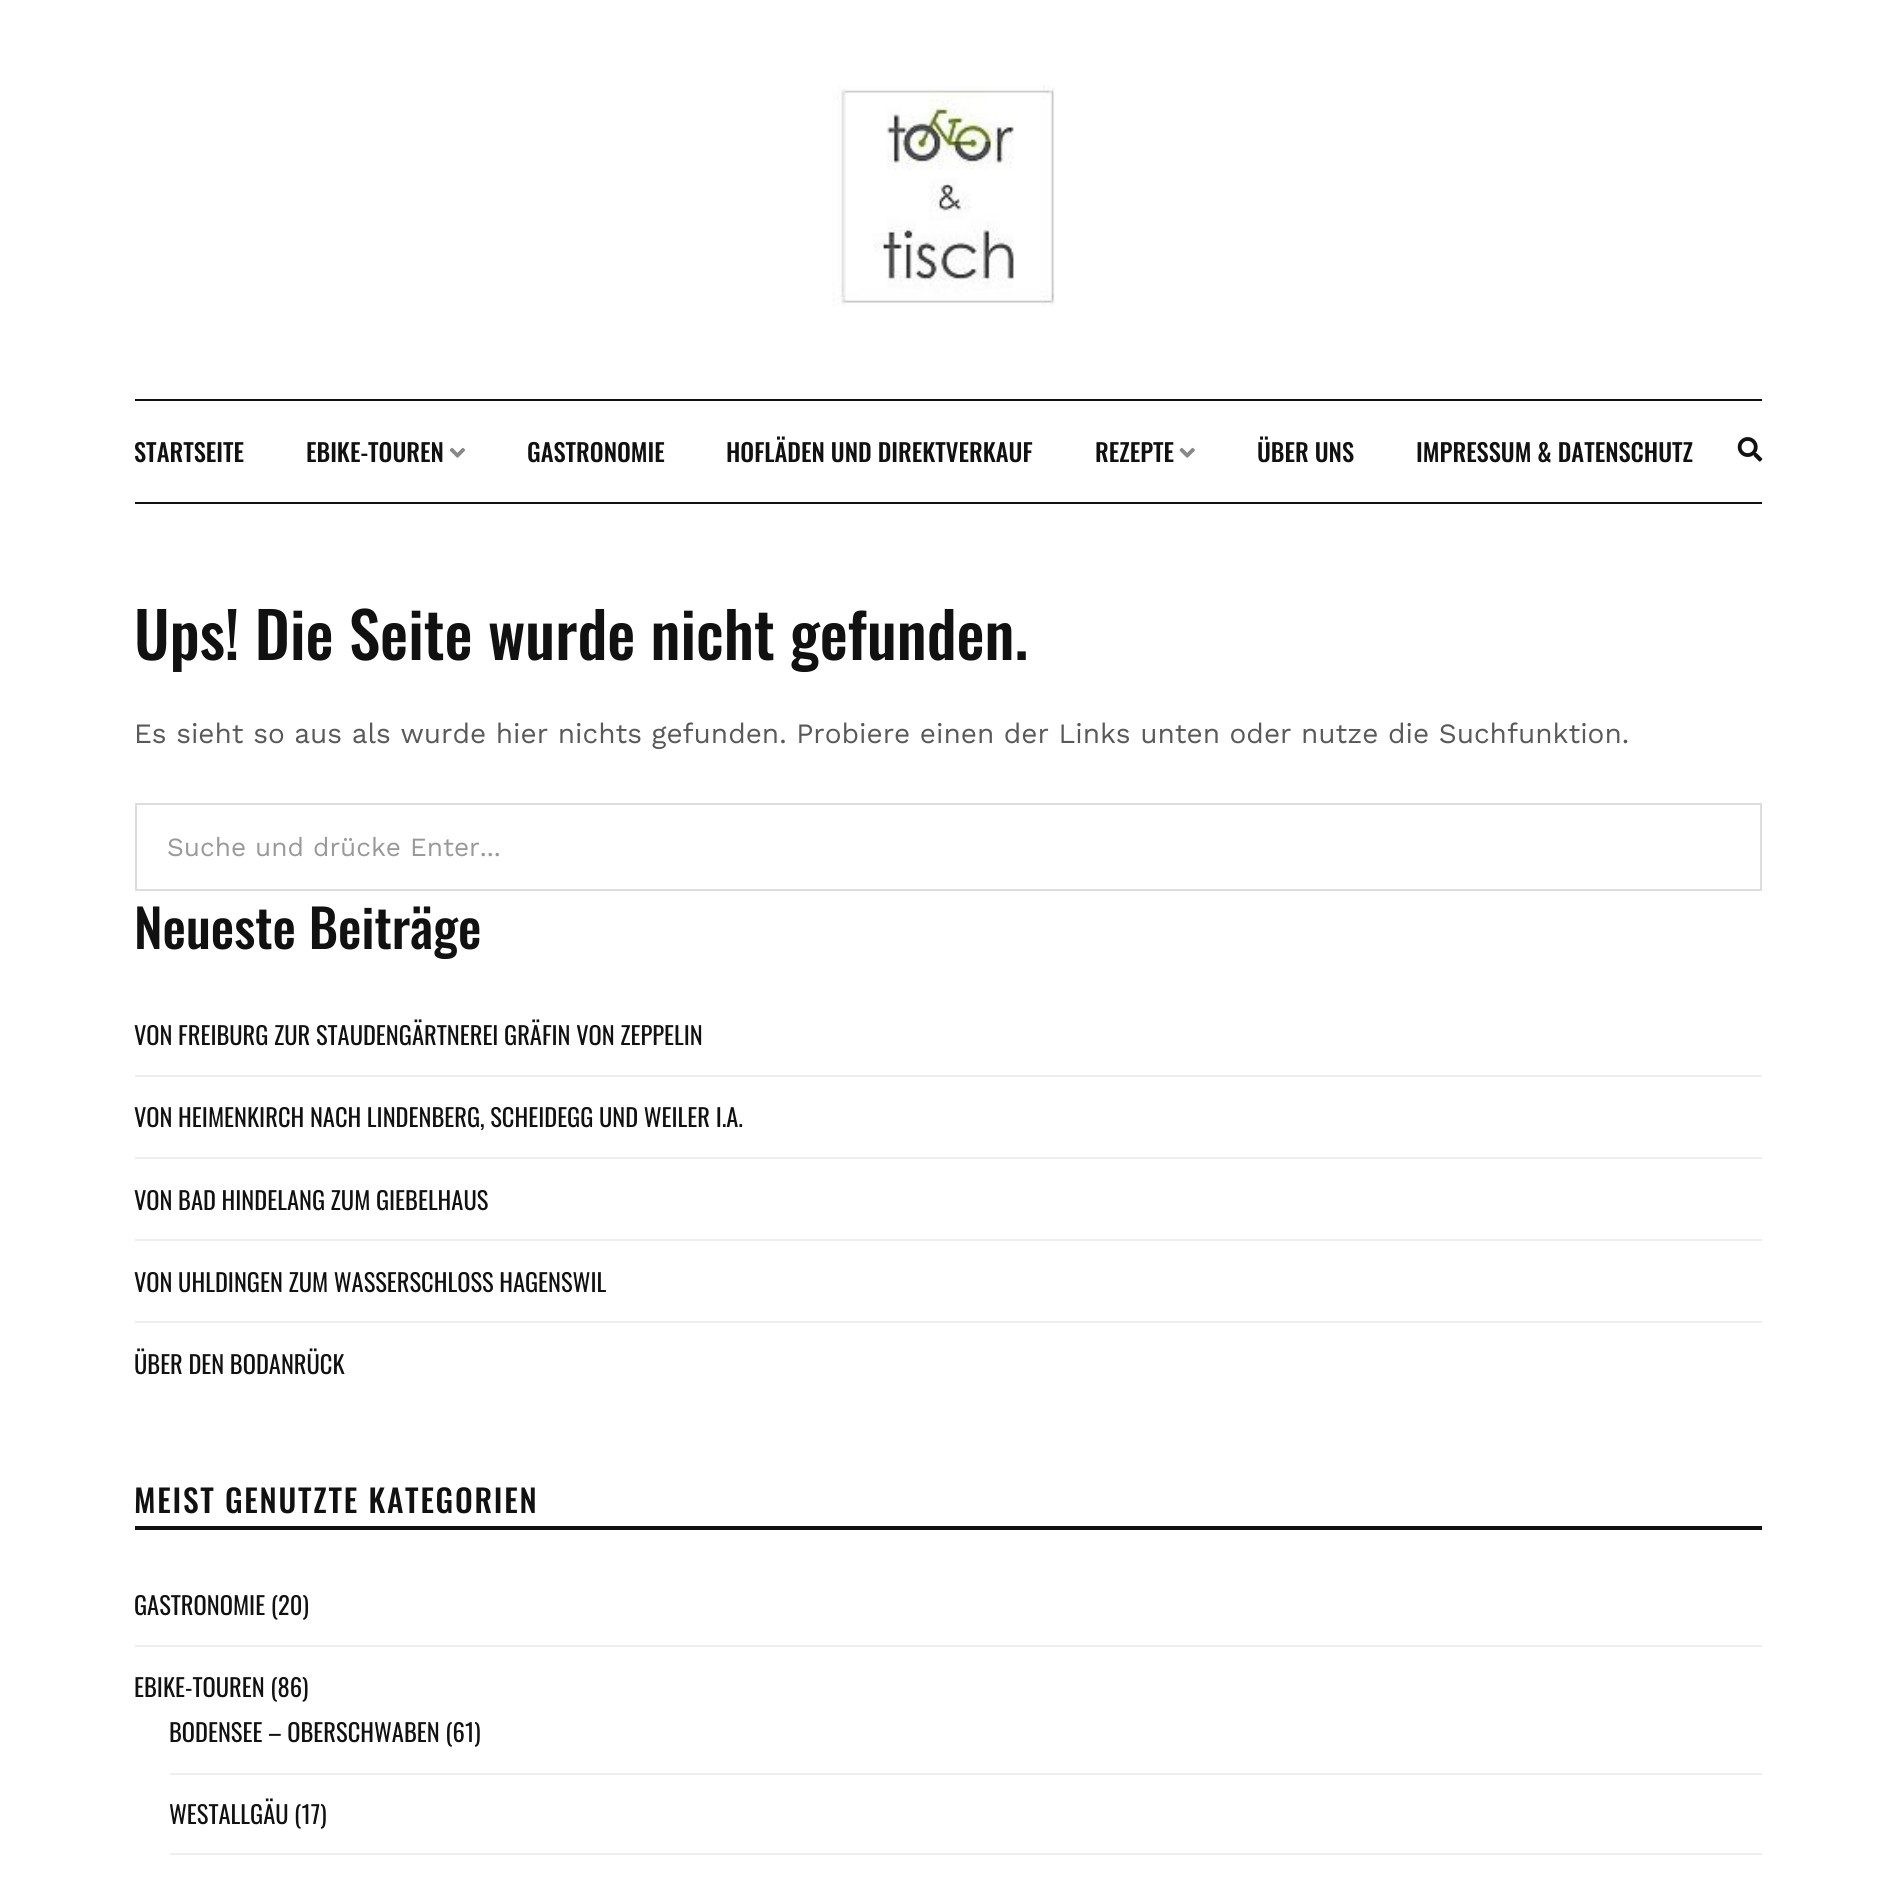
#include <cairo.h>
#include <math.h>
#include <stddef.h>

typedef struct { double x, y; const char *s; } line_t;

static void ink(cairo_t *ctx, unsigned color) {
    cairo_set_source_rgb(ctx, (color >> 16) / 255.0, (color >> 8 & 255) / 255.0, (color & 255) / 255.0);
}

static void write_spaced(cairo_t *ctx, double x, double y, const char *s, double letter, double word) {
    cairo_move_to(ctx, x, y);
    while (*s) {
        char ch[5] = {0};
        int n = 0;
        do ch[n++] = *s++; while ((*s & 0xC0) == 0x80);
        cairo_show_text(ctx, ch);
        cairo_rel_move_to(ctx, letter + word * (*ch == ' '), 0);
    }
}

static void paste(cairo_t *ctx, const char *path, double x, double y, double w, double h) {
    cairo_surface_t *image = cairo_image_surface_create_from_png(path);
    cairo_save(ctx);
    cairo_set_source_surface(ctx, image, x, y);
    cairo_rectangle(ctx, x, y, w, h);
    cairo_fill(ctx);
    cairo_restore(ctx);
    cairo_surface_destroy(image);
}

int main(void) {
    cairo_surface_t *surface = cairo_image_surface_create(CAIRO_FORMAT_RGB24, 1894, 1886);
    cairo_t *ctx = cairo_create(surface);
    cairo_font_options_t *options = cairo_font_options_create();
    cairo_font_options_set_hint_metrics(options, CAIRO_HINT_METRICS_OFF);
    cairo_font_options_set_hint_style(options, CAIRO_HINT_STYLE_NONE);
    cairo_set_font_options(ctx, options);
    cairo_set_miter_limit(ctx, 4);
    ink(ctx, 0xFFFFFF);
    cairo_paint(ctx);
    paste(ctx, "media/1.png", 832, 85, 223, 222);
    ink(ctx, 0x111111);
    cairo_rectangle(ctx, 135, 399, 1627, 2);
    cairo_fill(ctx);
    cairo_rectangle(ctx, 135, 502, 1627, 2);
    cairo_fill(ctx);
    cairo_select_font_face(ctx, "Oswald Medium", CAIRO_FONT_SLANT_NORMAL, CAIRO_FONT_WEIGHT_NORMAL);
    cairo_set_font_size(ctx, 24.5);
    cairo_move_to(ctx, 134, 462);
    cairo_show_text(ctx, "STARTSEITE");
    cairo_move_to(ctx, 306, 462);
    cairo_show_text(ctx, "EBIKE-TOUREN");
    paste(ctx, "media/2.png", 449, 447, 16, 11);
    {
        static const line_t items[] = {
            {527, 462, "GASTRONOMIE"},
            {726, 462, "HOFLÄDEN UND DIREKTVERKAUF"},
            {1095, 462, "REZEPTE"},
        };
        for (size_t i = 0; i < sizeof items / sizeof *items; i++) {
            cairo_move_to(ctx, items[i].x, items[i].y);
            cairo_show_text(ctx, items[i].s);
        }
    }
    paste(ctx, "media/3.png", 1179, 447, 16, 11);
    cairo_move_to(ctx, 1257, 462);
    cairo_show_text(ctx, "ÜBER UNS");
    cairo_move_to(ctx, 1416, 462);
    cairo_show_text(ctx, "IMPRESSUM & DATENSCHUTZ");
    paste(ctx, "media/4.png", 1737, 437, 26, 25);
    cairo_set_font_size(ctx, 63);
    cairo_move_to(ctx, 134, 660);
    cairo_show_text(ctx, "Ups! Die Seite wurde nicht gefunden.");
    cairo_select_font_face(ctx, "Work Sans", CAIRO_FONT_SLANT_NORMAL, CAIRO_FONT_WEIGHT_NORMAL);
    cairo_set_font_size(ctx, 28);
    ink(ctx, 0x595959);
    cairo_move_to(ctx, 134, 743);
    cairo_show_text(ctx, "Es sieht so aus als wurde hier nichts gefunden. Probiere einen der Links unten oder nutze die Suchfunktion.");
    cairo_rectangle(ctx, 136, 804, 1625, 86);
    ink(ctx, 0xDDDDDD);
    cairo_stroke(ctx);
    cairo_set_font_size(ctx, 26.25);
    ink(ctx, 0x999999);
    cairo_move_to(ctx, 167, 856);
    cairo_show_text(ctx, "Suche und drücke Enter...");
    cairo_select_font_face(ctx, "Oswald Medium", CAIRO_FONT_SLANT_NORMAL, CAIRO_FONT_WEIGHT_NORMAL);
    cairo_set_font_size(ctx, 52.5);
    ink(ctx, 0x111111);
    cairo_move_to(ctx, 134, 949);
    cairo_show_text(ctx, "Neueste Beiträge");
    ink(ctx, 0xEEEEEE);
    cairo_rectangle(ctx, 135, 1075, 1627, 2);
    cairo_fill(ctx);
    cairo_select_font_face(ctx, "Oswald", CAIRO_FONT_SLANT_NORMAL, CAIRO_FONT_WEIGHT_NORMAL);
    cairo_set_font_size(ctx, 24.5);
    ink(ctx, 0x111111);
    cairo_move_to(ctx, 134, 1045);
    cairo_show_text(ctx, "VON FREIBURG ZUR STAUDENGÄRTNEREI GRÄFIN VON ZEPPELIN");
    ink(ctx, 0xEEEEEE);
    cairo_rectangle(ctx, 135, 1157, 1627, 2);
    cairo_fill(ctx);
    ink(ctx, 0x111111);
    cairo_move_to(ctx, 134, 1127);
    cairo_show_text(ctx, "VON HEIMENKIRCH NACH LINDENBERG, SCHEIDEGG UND WEILER I.A.");
    ink(ctx, 0xEEEEEE);
    cairo_rectangle(ctx, 135, 1239, 1627, 2);
    cairo_fill(ctx);
    ink(ctx, 0x111111);
    cairo_move_to(ctx, 134, 1210);
    cairo_show_text(ctx, "VON BAD HINDELANG ZUM GIEBELHAUS");
    ink(ctx, 0xEEEEEE);
    cairo_rectangle(ctx, 135, 1321, 1627, 2);
    cairo_fill(ctx);
    ink(ctx, 0x111111);
    cairo_move_to(ctx, 134, 1292);
    cairo_show_text(ctx, "VON UHLDINGEN ZUM WASSERSCHLOSS HAGENSWIL");
    cairo_move_to(ctx, 134, 1374);
    cairo_show_text(ctx, "ÜBER DEN BODANRÜCK");
    cairo_rectangle(ctx, 135, 1526, 1627, 4);
    cairo_fill(ctx);
    cairo_select_font_face(ctx, "Oswald Medium", CAIRO_FONT_SLANT_NORMAL, CAIRO_FONT_WEIGHT_NORMAL);
    cairo_set_font_size(ctx, 31.5);
    write_spaced(ctx, 134, 1513, "MEIST GENUTZTE KATEGORIEN", 1.75, 0);
    ink(ctx, 0xEEEEEE);
    cairo_rectangle(ctx, 135, 1645, 1627, 2);
    cairo_fill(ctx);
    cairo_select_font_face(ctx, "Oswald", CAIRO_FONT_SLANT_NORMAL, CAIRO_FONT_WEIGHT_NORMAL);
    cairo_set_font_size(ctx, 24.5);
    ink(ctx, 0x111111);
    cairo_move_to(ctx, 134, 1615);
    cairo_show_text(ctx, "GASTRONOMIE (20)");
    cairo_move_to(ctx, 134, 1697);
    cairo_show_text(ctx, "EBIKE-TOUREN (86)");
    ink(ctx, 0xEEEEEE);
    cairo_rectangle(ctx, 170, 1773, 1592, 2);
    cairo_fill(ctx);
    ink(ctx, 0x111111);
    cairo_move_to(ctx, 169, 1742);
    cairo_show_text(ctx, "BODENSEE – OBERSCHWABEN (61)");
    ink(ctx, 0xEEEEEE);
    cairo_rectangle(ctx, 170, 1853, 1592, 2);
    cairo_fill(ctx);
    ink(ctx, 0x111111);
    cairo_move_to(ctx, 169, 1824);
    cairo_show_text(ctx, "WESTALLGÄU (17)");
    cairo_surface_write_to_png(surface, "image.png");
    cairo_font_options_destroy(options);
    cairo_destroy(ctx);
    cairo_surface_destroy(surface);
    return 0;
}
